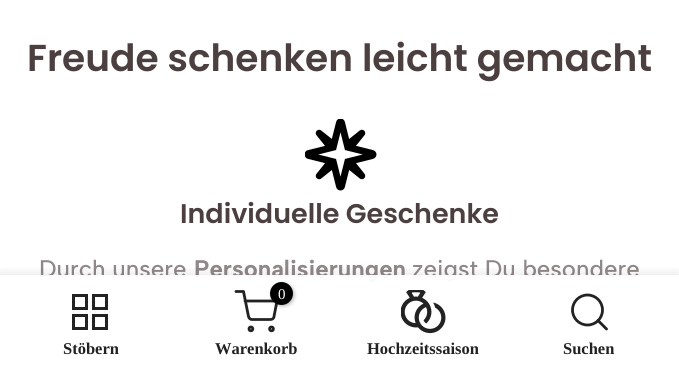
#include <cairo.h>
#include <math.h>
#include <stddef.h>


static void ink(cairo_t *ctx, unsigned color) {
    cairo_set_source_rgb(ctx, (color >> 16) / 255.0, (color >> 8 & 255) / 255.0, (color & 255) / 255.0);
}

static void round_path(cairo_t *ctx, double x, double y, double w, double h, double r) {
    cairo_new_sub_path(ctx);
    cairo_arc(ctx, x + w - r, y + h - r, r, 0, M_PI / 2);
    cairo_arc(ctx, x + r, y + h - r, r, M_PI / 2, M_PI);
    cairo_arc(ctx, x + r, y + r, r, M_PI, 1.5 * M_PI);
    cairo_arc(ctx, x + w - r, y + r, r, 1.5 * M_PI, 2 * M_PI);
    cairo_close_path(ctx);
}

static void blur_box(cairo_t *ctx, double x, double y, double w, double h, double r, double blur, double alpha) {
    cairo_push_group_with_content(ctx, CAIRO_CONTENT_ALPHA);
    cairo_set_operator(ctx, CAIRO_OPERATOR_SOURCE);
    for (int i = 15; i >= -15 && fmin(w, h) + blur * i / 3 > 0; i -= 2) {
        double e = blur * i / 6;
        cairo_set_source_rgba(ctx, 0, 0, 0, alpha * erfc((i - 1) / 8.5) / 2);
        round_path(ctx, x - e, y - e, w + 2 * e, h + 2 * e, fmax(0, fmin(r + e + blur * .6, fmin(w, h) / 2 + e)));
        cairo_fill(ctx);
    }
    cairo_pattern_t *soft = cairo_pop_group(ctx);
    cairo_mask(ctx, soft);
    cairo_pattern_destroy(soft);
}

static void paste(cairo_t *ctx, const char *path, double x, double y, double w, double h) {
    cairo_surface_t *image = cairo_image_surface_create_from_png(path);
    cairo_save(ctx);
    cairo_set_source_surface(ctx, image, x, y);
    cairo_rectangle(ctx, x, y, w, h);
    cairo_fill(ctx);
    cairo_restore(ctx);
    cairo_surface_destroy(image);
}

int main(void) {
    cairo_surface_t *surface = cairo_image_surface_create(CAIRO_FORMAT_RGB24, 679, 387);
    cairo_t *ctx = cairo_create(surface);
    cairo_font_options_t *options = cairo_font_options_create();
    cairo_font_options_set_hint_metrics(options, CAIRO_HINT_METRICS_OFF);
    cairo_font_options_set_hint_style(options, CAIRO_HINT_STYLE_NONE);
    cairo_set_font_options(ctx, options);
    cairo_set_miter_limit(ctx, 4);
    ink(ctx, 0xFFFFFF);
    cairo_paint(ctx);
    cairo_select_font_face(ctx, "Poppins SemiBold", CAIRO_FONT_SLANT_NORMAL, CAIRO_FONT_WEIGHT_NORMAL);
    cairo_set_font_size(ctx, 37.5);
    ink(ctx, 0x4B3F3F);
    cairo_move_to(ctx, 27, 71);
    cairo_show_text(ctx, "Freude schenken leicht gemacht");
    paste(ctx, "media/1.png", 305, 119, 72, 72);
    cairo_set_font_size(ctx, 27);
    cairo_move_to(ctx, 180, 223);
    cairo_show_text(ctx, "Individuelle Geschenke");
    cairo_select_font_face(ctx, "Albert Sans Medium", CAIRO_FONT_SLANT_NORMAL, CAIRO_FONT_WEIGHT_NORMAL);
    cairo_set_font_size(ctx, 24);
    ink(ctx, 0x908888);
    cairo_move_to(ctx, 39, 277);
    cairo_show_text(ctx, "Durch unsere");
    cairo_select_font_face(ctx, "Albert Sans", CAIRO_FONT_SLANT_NORMAL, CAIRO_FONT_WEIGHT_BOLD);
    cairo_move_to(ctx, 194, 277);
    cairo_show_text(ctx, "Personalisierungen");
    cairo_select_font_face(ctx, "Albert Sans Medium", CAIRO_FONT_SLANT_NORMAL, CAIRO_FONT_WEIGHT_NORMAL);
    cairo_move_to(ctx, 412, 277);
    cairo_show_text(ctx, "zeigst Du besondere");
    cairo_save(ctx);
    cairo_rectangle(ctx, 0, 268, 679, 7);
    cairo_clip(ctx);
    ink(ctx, 0x000000);
    blur_box(ctx, 0, 275, 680, 112, 0, 7, 0.12);
    cairo_restore(ctx);
    cairo_set_source_rgba(ctx, 1, 1, 1, 0.95);
    cairo_rectangle(ctx, 41, 275, 597, 7);
    cairo_fill(ctx);
    cairo_rectangle(ctx, 73.5, 295.5, 13, 13);
    ink(ctx, 0x222222);
    cairo_set_line_width(ctx, 3);
    cairo_stroke(ctx);
    cairo_rectangle(ctx, 93.5, 295.5, 13, 13);
    cairo_stroke(ctx);
    cairo_rectangle(ctx, 93.5, 315.5, 13, 13);
    cairo_stroke(ctx);
    cairo_rectangle(ctx, 73.5, 315.5, 13, 13);
    cairo_stroke(ctx);
    cairo_select_font_face(ctx, "Liberation Serif", CAIRO_FONT_SLANT_NORMAL, CAIRO_FONT_WEIGHT_BOLD);
    cairo_set_font_size(ctx, 16.5);
    cairo_move_to(ctx, 63, 354);
    cairo_show_text(ctx, "Stöbern");
    cairo_new_path(ctx);
    cairo_arc(ctx, 250.9, 328.9, 1.9, 0, 2 * M_PI);
    cairo_set_line_width(ctx, 2.8);
    cairo_stroke(ctx);
    cairo_arc(ctx, 271.5, 328.9, 1.9, 0, 2 * M_PI);
    cairo_stroke(ctx);
    cairo_new_path(ctx);
    cairo_move_to(ctx, 236, 291.5);
    cairo_line_to(ctx, 243.5, 291.5);
    cairo_line_to(ctx, 248.5, 316.5);
    cairo_curve_to(ctx, 249, 318.5, 250.5, 319.5, 252, 319.5);
    cairo_line_to(ctx, 270.5, 319.5);
    cairo_curve_to(ctx, 272, 319.5, 274, 318.5, 274, 316.5);
    cairo_line_to(ctx, 277, 301);
    cairo_line_to(ctx, 245, 301);
    cairo_set_line_cap(ctx, CAIRO_LINE_CAP_ROUND);
    cairo_set_line_join(ctx, CAIRO_LINE_JOIN_ROUND);
    cairo_stroke(ctx);
    ink(ctx, 0x000000);
    blur_box(ctx, 272, 284, 22, 22, 11, 2, 0.3);
    ink(ctx, 0x000000);
    cairo_arc(ctx, 281.5, 293.5, 11.5, 0, 2 * M_PI);
    cairo_fill(ctx);
    cairo_select_font_face(ctx, "Liberation Serif", CAIRO_FONT_SLANT_NORMAL, CAIRO_FONT_WEIGHT_NORMAL);
    cairo_set_font_size(ctx, 15);
    ink(ctx, 0xFFFFFF);
    cairo_move_to(ctx, 278, 299);
    cairo_show_text(ctx, "0");
    cairo_select_font_face(ctx, "Liberation Serif", CAIRO_FONT_SLANT_NORMAL, CAIRO_FONT_WEIGHT_BOLD);
    cairo_set_font_size(ctx, 16.5);
    ink(ctx, 0x222222);
    cairo_move_to(ctx, 215, 354);
    cairo_show_text(ctx, "Warenkorb");
    paste(ctx, "media/2.png", 401, 290, 45, 44);
    cairo_move_to(ctx, 367, 354);
    cairo_show_text(ctx, "Hochzeitssaison");
    cairo_new_path(ctx);
    cairo_arc(ctx, 587.5, 310, 15, 0, 2 * M_PI);
    cairo_set_line_cap(ctx, CAIRO_LINE_CAP_BUTT);
    cairo_set_line_join(ctx, CAIRO_LINE_JOIN_MITER);
    cairo_stroke(ctx);
    cairo_new_path(ctx);
    cairo_move_to(ctx, 606.5, 329);
    cairo_line_to(ctx, 598, 320.5);
    cairo_set_line_cap(ctx, CAIRO_LINE_CAP_ROUND);
    cairo_set_line_join(ctx, CAIRO_LINE_JOIN_ROUND);
    cairo_stroke(ctx);
    cairo_move_to(ctx, 563, 354);
    cairo_show_text(ctx, "Suchen");
    cairo_surface_write_to_png(surface, "image.png");
    cairo_font_options_destroy(options);
    cairo_destroy(ctx);
    cairo_surface_destroy(surface);
    return 0;
}
